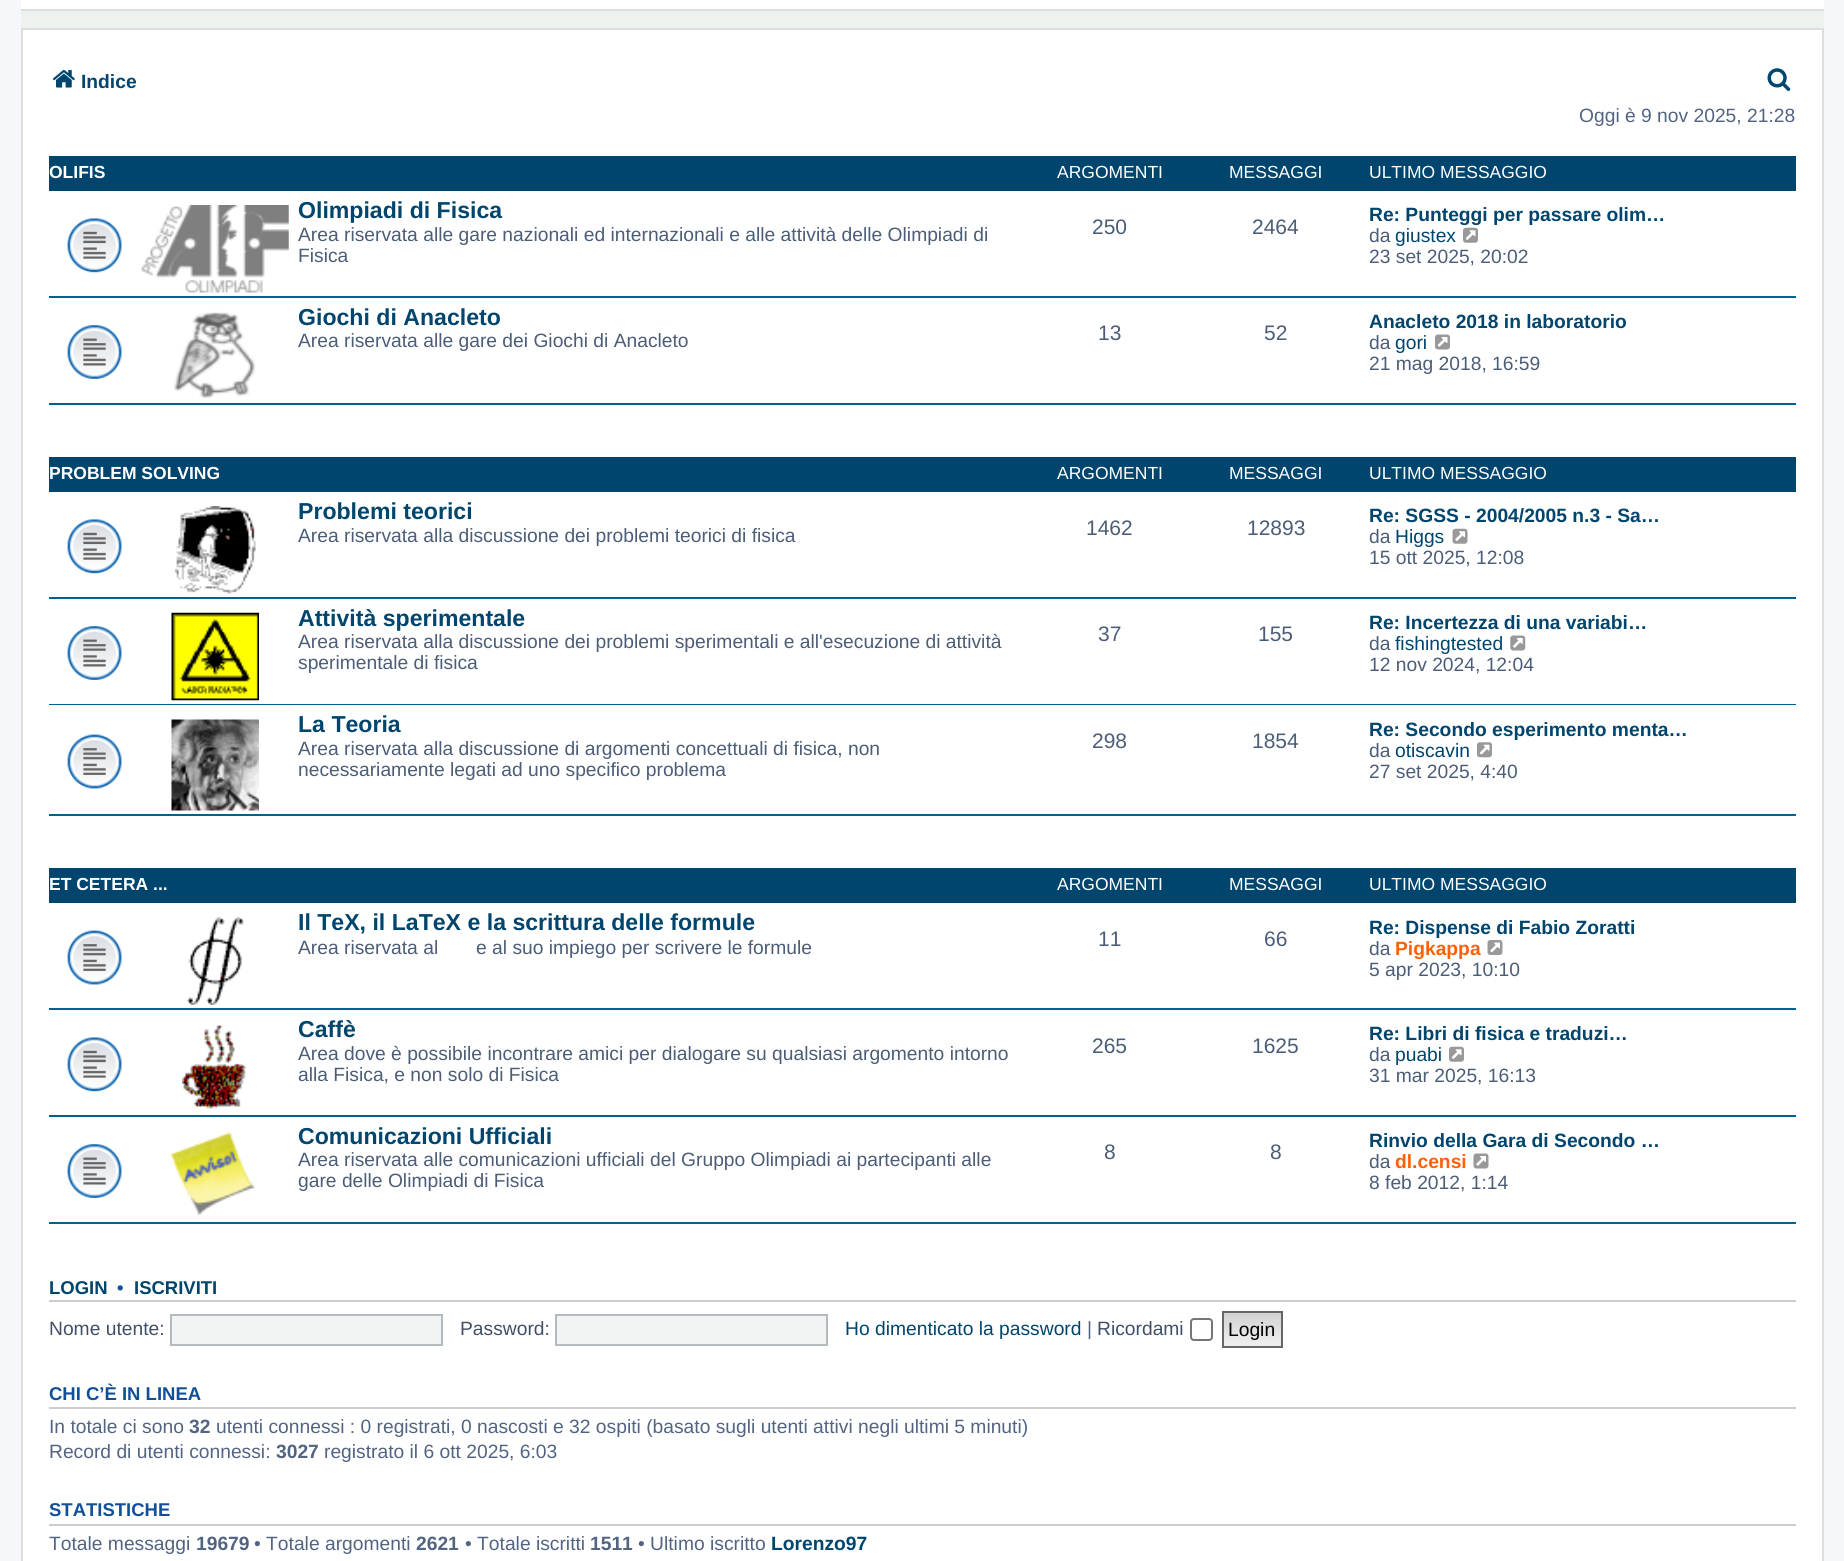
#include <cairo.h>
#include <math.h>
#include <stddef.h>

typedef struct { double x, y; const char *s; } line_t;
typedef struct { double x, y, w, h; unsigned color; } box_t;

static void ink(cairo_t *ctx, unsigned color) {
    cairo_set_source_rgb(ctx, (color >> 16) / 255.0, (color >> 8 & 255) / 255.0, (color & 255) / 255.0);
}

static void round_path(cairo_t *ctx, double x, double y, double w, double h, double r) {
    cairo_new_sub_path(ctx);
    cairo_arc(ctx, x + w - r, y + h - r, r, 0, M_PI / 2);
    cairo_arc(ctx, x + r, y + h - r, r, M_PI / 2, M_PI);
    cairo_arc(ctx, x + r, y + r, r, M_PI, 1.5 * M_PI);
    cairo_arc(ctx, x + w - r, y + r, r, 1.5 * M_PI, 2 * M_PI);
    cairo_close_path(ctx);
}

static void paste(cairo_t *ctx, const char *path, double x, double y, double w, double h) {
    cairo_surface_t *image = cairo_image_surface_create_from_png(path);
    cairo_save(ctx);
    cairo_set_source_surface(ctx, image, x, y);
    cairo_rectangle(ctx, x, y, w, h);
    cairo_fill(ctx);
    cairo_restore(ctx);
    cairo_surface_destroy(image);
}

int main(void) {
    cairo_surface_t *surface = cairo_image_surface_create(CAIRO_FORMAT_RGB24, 1844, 1561);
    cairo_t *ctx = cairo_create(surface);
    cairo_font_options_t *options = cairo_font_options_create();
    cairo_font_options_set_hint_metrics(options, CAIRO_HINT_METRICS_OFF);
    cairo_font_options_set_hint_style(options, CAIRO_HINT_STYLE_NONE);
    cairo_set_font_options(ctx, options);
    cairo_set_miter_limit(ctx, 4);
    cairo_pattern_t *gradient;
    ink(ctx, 0xF5F7FA);
    cairo_paint(ctx);
    {
        static const box_t items[] = {
            {21, 11, 1803, 17, 0xEEF2EE},
            {21, 0, 1803, 9, 0xFFFFFF},
            {21, 9, 1803, 2, 0xDDDDDD},
        };
        for (size_t i = 0; i < sizeof items / sizeof *items; i++) {
            ink(ctx, items[i].color);
            cairo_rectangle(ctx, items[i].x, items[i].y, items[i].w, items[i].h);
            cairo_fill(ctx);
        }
    }
    ink(ctx, 0xFFFFFF);
    cairo_rectangle(ctx, 22, 29, 1801, 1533);
    cairo_fill_preserve(ctx);
    ink(ctx, 0xDDDDDD);
    cairo_stroke(ctx);
    paste(ctx, "media/1.png", 52, 70, 23, 18);
    cairo_select_font_face(ctx, "Liberation Sans", CAIRO_FONT_SLANT_NORMAL, CAIRO_FONT_WEIGHT_BOLD);
    cairo_set_font_size(ctx, 19.25);
    ink(ctx, 0x00456E);
    cairo_move_to(ctx, 81, 88);
    cairo_show_text(ctx, "Indice");
    paste(ctx, "media/2.png", 1767, 68, 24, 23);
    cairo_select_font_face(ctx, "Liberation Sans", CAIRO_FONT_SLANT_NORMAL, CAIRO_FONT_WEIGHT_NORMAL);
    ink(ctx, 0x536482);
    cairo_move_to(ctx, 1579, 122);
    cairo_show_text(ctx, "Oggi è 9 nov 2025, 21:28");
    ink(ctx, 0x00456E);
    cairo_rectangle(ctx, 49, 156, 1747, 35);
    cairo_fill(ctx);
    cairo_select_font_face(ctx, "Liberation Sans", CAIRO_FONT_SLANT_NORMAL, CAIRO_FONT_WEIGHT_BOLD);
    cairo_set_font_size(ctx, 17.5);
    ink(ctx, 0xFFFFFF);
    cairo_move_to(ctx, 49, 178);
    cairo_show_text(ctx, "OLIFIS");
    cairo_select_font_face(ctx, "Liberation Sans", CAIRO_FONT_SLANT_NORMAL, CAIRO_FONT_WEIGHT_NORMAL);
    {
        static const line_t items[] = {
            {1057, 178, "ARGOMENTI"},
            {1229, 178, "MESSAGGI"},
            {1369, 178, "ULTIMO MESSAGGIO"},
        };
        for (size_t i = 0; i < sizeof items / sizeof *items; i++) {
            cairo_move_to(ctx, items[i].x, items[i].y);
            cairo_show_text(ctx, items[i].s);
        }
    }
    ink(ctx, 0x00608F);
    cairo_rectangle(ctx, 49, 296, 1747, 2);
    cairo_fill(ctx);
    paste(ctx, "media/3.png", 67, 218, 55, 55);
    paste(ctx, "media/4.png", 141, 205, 148, 88);
    cairo_select_font_face(ctx, "Liberation Sans", CAIRO_FONT_SLANT_NORMAL, CAIRO_FONT_WEIGHT_BOLD);
    cairo_set_font_size(ctx, 23.1);
    ink(ctx, 0x00456E);
    cairo_move_to(ctx, 298, 218);
    cairo_show_text(ctx, "Olimpiadi di Fisica");
    cairo_select_font_face(ctx, "Liberation Sans", CAIRO_FONT_SLANT_NORMAL, CAIRO_FONT_WEIGHT_NORMAL);
    cairo_set_font_size(ctx, 19.25);
    ink(ctx, 0x4C5D77);
    cairo_move_to(ctx, 298, 241);
    cairo_show_text(ctx, "Area riservata alle gare nazionali ed internazionali e alle attività delle Olimpiadi di");
    cairo_move_to(ctx, 298, 262);
    cairo_show_text(ctx, "Fisica");
    cairo_set_font_size(ctx, 21);
    cairo_move_to(ctx, 1092, 234);
    cairo_show_text(ctx, "250");
    cairo_move_to(ctx, 1252, 234);
    cairo_show_text(ctx, "2464");
    cairo_select_font_face(ctx, "Liberation Sans", CAIRO_FONT_SLANT_NORMAL, CAIRO_FONT_WEIGHT_BOLD);
    cairo_set_font_size(ctx, 19.25);
    ink(ctx, 0x00456E);
    cairo_move_to(ctx, 1369, 221);
    cairo_show_text(ctx, "Re: Punteggi per passare olim…");
    cairo_select_font_face(ctx, "Liberation Sans", CAIRO_FONT_SLANT_NORMAL, CAIRO_FONT_WEIGHT_NORMAL);
    ink(ctx, 0x4C5D77);
    cairo_move_to(ctx, 1369, 242);
    cairo_show_text(ctx, "da");
    ink(ctx, 0x00456E);
    cairo_move_to(ctx, 1395, 242);
    cairo_show_text(ctx, "giustex");
    paste(ctx, "media/5.png", 1463, 227, 15, 16);
    ink(ctx, 0x4C5D77);
    cairo_move_to(ctx, 1369, 263);
    cairo_show_text(ctx, "23 set 2025, 20:02");
    ink(ctx, 0x00608F);
    cairo_rectangle(ctx, 49, 403, 1747, 2);
    cairo_fill(ctx);
    paste(ctx, "media/6.png", 67, 325, 55, 54);
    paste(ctx, "media/7.png", 174, 311, 82, 87);
    cairo_select_font_face(ctx, "Liberation Sans", CAIRO_FONT_SLANT_NORMAL, CAIRO_FONT_WEIGHT_BOLD);
    cairo_set_font_size(ctx, 23.1);
    ink(ctx, 0x00456E);
    cairo_move_to(ctx, 298, 325);
    cairo_show_text(ctx, "Giochi di Anacleto");
    cairo_select_font_face(ctx, "Liberation Sans", CAIRO_FONT_SLANT_NORMAL, CAIRO_FONT_WEIGHT_NORMAL);
    cairo_set_font_size(ctx, 19.25);
    ink(ctx, 0x4C5D77);
    cairo_move_to(ctx, 298, 347);
    cairo_show_text(ctx, "Area riservata alle gare dei Giochi di Anacleto");
    cairo_set_font_size(ctx, 21);
    cairo_move_to(ctx, 1098, 340);
    cairo_show_text(ctx, "13");
    cairo_move_to(ctx, 1264, 340);
    cairo_show_text(ctx, "52");
    cairo_select_font_face(ctx, "Liberation Sans", CAIRO_FONT_SLANT_NORMAL, CAIRO_FONT_WEIGHT_BOLD);
    cairo_set_font_size(ctx, 19.25);
    ink(ctx, 0x00456E);
    cairo_move_to(ctx, 1369, 328);
    cairo_show_text(ctx, "Anacleto 2018 in laboratorio");
    cairo_select_font_face(ctx, "Liberation Sans", CAIRO_FONT_SLANT_NORMAL, CAIRO_FONT_WEIGHT_NORMAL);
    ink(ctx, 0x4C5D77);
    cairo_move_to(ctx, 1369, 349);
    cairo_show_text(ctx, "da");
    ink(ctx, 0x00456E);
    cairo_move_to(ctx, 1395, 349);
    cairo_show_text(ctx, "gori");
    paste(ctx, "media/8.png", 1435, 334, 15, 16);
    ink(ctx, 0x4C5D77);
    cairo_move_to(ctx, 1369, 370);
    cairo_show_text(ctx, "21 mag 2018, 16:59");
    ink(ctx, 0x00456E);
    cairo_rectangle(ctx, 49, 457, 1747, 35);
    cairo_fill(ctx);
    cairo_select_font_face(ctx, "Liberation Sans", CAIRO_FONT_SLANT_NORMAL, CAIRO_FONT_WEIGHT_BOLD);
    cairo_set_font_size(ctx, 17.5);
    ink(ctx, 0xFFFFFF);
    cairo_move_to(ctx, 49, 479);
    cairo_show_text(ctx, "PROBLEM SOLVING");
    cairo_select_font_face(ctx, "Liberation Sans", CAIRO_FONT_SLANT_NORMAL, CAIRO_FONT_WEIGHT_NORMAL);
    {
        static const line_t items[] = {
            {1057, 479, "ARGOMENTI"},
            {1229, 479, "MESSAGGI"},
            {1369, 479, "ULTIMO MESSAGGIO"},
        };
        for (size_t i = 0; i < sizeof items / sizeof *items; i++) {
            cairo_move_to(ctx, items[i].x, items[i].y);
            cairo_show_text(ctx, items[i].s);
        }
    }
    ink(ctx, 0x00608F);
    cairo_rectangle(ctx, 49, 597, 1747, 2);
    cairo_fill(ctx);
    paste(ctx, "media/9.png", 67, 519, 55, 55);
    paste(ctx, "media/10.png", 175, 506, 81, 88);
    cairo_select_font_face(ctx, "Liberation Sans", CAIRO_FONT_SLANT_NORMAL, CAIRO_FONT_WEIGHT_BOLD);
    cairo_set_font_size(ctx, 23.1);
    ink(ctx, 0x00456E);
    cairo_move_to(ctx, 298, 519);
    cairo_show_text(ctx, "Problemi teorici");
    cairo_select_font_face(ctx, "Liberation Sans", CAIRO_FONT_SLANT_NORMAL, CAIRO_FONT_WEIGHT_NORMAL);
    cairo_set_font_size(ctx, 19.25);
    ink(ctx, 0x4C5D77);
    cairo_move_to(ctx, 298, 542);
    cairo_show_text(ctx, "Area riservata alla discussione dei problemi teorici di fisica");
    cairo_set_font_size(ctx, 21);
    cairo_move_to(ctx, 1086, 535);
    cairo_show_text(ctx, "1462");
    cairo_move_to(ctx, 1247, 535);
    cairo_show_text(ctx, "12893");
    cairo_select_font_face(ctx, "Liberation Sans", CAIRO_FONT_SLANT_NORMAL, CAIRO_FONT_WEIGHT_BOLD);
    cairo_set_font_size(ctx, 19.25);
    ink(ctx, 0x00456E);
    cairo_move_to(ctx, 1369, 522);
    cairo_show_text(ctx, "Re: SGSS - 2004/2005 n.3 - Sa…");
    cairo_select_font_face(ctx, "Liberation Sans", CAIRO_FONT_SLANT_NORMAL, CAIRO_FONT_WEIGHT_NORMAL);
    ink(ctx, 0x4C5D77);
    cairo_move_to(ctx, 1369, 543);
    cairo_show_text(ctx, "da");
    ink(ctx, 0x00456E);
    cairo_move_to(ctx, 1395, 543);
    cairo_show_text(ctx, "Higgs");
    paste(ctx, "media/11.png", 1452, 528, 16, 16);
    ink(ctx, 0x4C5D77);
    cairo_move_to(ctx, 1369, 564);
    cairo_show_text(ctx, "15 ott 2025, 12:08");
    ink(ctx, 0x00608F);
    cairo_rectangle(ctx, 49, 704, 1747, 1);
    cairo_fill(ctx);
    paste(ctx, "media/6.png", 67, 626, 55, 54);
    paste(ctx, "media/12.png", 171, 612, 88, 89);
    cairo_select_font_face(ctx, "Liberation Sans", CAIRO_FONT_SLANT_NORMAL, CAIRO_FONT_WEIGHT_BOLD);
    cairo_set_font_size(ctx, 23.1);
    ink(ctx, 0x00456E);
    cairo_move_to(ctx, 298, 626);
    cairo_show_text(ctx, "Attività sperimentale");
    cairo_select_font_face(ctx, "Liberation Sans", CAIRO_FONT_SLANT_NORMAL, CAIRO_FONT_WEIGHT_NORMAL);
    cairo_set_font_size(ctx, 19.25);
    ink(ctx, 0x4C5D77);
    cairo_move_to(ctx, 298, 648);
    cairo_show_text(ctx, "Area riservata alla discussione dei problemi sperimentali e all'esecuzione di attività");
    cairo_move_to(ctx, 298, 669);
    cairo_show_text(ctx, "sperimentale di fisica");
    cairo_set_font_size(ctx, 21);
    cairo_move_to(ctx, 1098, 641);
    cairo_show_text(ctx, "37");
    cairo_move_to(ctx, 1258, 641);
    cairo_show_text(ctx, "155");
    cairo_select_font_face(ctx, "Liberation Sans", CAIRO_FONT_SLANT_NORMAL, CAIRO_FONT_WEIGHT_BOLD);
    cairo_set_font_size(ctx, 19.25);
    ink(ctx, 0x00456E);
    cairo_move_to(ctx, 1369, 629);
    cairo_show_text(ctx, "Re: Incertezza di una variabi…");
    cairo_select_font_face(ctx, "Liberation Sans", CAIRO_FONT_SLANT_NORMAL, CAIRO_FONT_WEIGHT_NORMAL);
    ink(ctx, 0x4C5D77);
    cairo_move_to(ctx, 1369, 650);
    cairo_show_text(ctx, "da");
    ink(ctx, 0x00456E);
    cairo_move_to(ctx, 1395, 650);
    cairo_show_text(ctx, "fishingtested");
    paste(ctx, "media/13.png", 1510, 635, 16, 16);
    ink(ctx, 0x4C5D77);
    cairo_move_to(ctx, 1369, 671);
    cairo_show_text(ctx, "12 nov 2024, 12:04");
    ink(ctx, 0x00608F);
    cairo_rectangle(ctx, 49, 814, 1747, 2);
    cairo_fill(ctx);
    paste(ctx, "media/14.png", 67, 734, 55, 55);
    paste(ctx, "media/15.png", 171, 719, 88, 92);
    cairo_select_font_face(ctx, "Liberation Sans", CAIRO_FONT_SLANT_NORMAL, CAIRO_FONT_WEIGHT_BOLD);
    cairo_set_font_size(ctx, 23.1);
    ink(ctx, 0x00456E);
    cairo_move_to(ctx, 298, 732);
    cairo_show_text(ctx, "La Teoria");
    cairo_select_font_face(ctx, "Liberation Sans", CAIRO_FONT_SLANT_NORMAL, CAIRO_FONT_WEIGHT_NORMAL);
    cairo_set_font_size(ctx, 19.25);
    ink(ctx, 0x4C5D77);
    cairo_move_to(ctx, 298, 755);
    cairo_show_text(ctx, "Area riservata alla discussione di argomenti concettuali di fisica, non");
    cairo_move_to(ctx, 298, 776);
    cairo_show_text(ctx, "necessariamente legati ad uno specifico problema");
    cairo_set_font_size(ctx, 21);
    cairo_move_to(ctx, 1092, 748);
    cairo_show_text(ctx, "298");
    cairo_move_to(ctx, 1252, 748);
    cairo_show_text(ctx, "1854");
    cairo_select_font_face(ctx, "Liberation Sans", CAIRO_FONT_SLANT_NORMAL, CAIRO_FONT_WEIGHT_BOLD);
    cairo_set_font_size(ctx, 19.25);
    ink(ctx, 0x00456E);
    cairo_move_to(ctx, 1369, 736);
    cairo_show_text(ctx, "Re: Secondo esperimento menta…");
    cairo_select_font_face(ctx, "Liberation Sans", CAIRO_FONT_SLANT_NORMAL, CAIRO_FONT_WEIGHT_NORMAL);
    ink(ctx, 0x4C5D77);
    cairo_move_to(ctx, 1369, 757);
    cairo_show_text(ctx, "da");
    ink(ctx, 0x00456E);
    cairo_move_to(ctx, 1395, 757);
    cairo_show_text(ctx, "otiscavin");
    paste(ctx, "media/16.png", 1477, 742, 15, 16);
    ink(ctx, 0x4C5D77);
    cairo_move_to(ctx, 1369, 778);
    cairo_show_text(ctx, "27 set 2025, 4:40");
    ink(ctx, 0x00456E);
    cairo_rectangle(ctx, 49, 868, 1747, 35);
    cairo_fill(ctx);
    cairo_select_font_face(ctx, "Liberation Sans", CAIRO_FONT_SLANT_NORMAL, CAIRO_FONT_WEIGHT_BOLD);
    cairo_set_font_size(ctx, 17.5);
    ink(ctx, 0xFFFFFF);
    cairo_move_to(ctx, 49, 890);
    cairo_show_text(ctx, "ET CETERA ...");
    cairo_select_font_face(ctx, "Liberation Sans", CAIRO_FONT_SLANT_NORMAL, CAIRO_FONT_WEIGHT_NORMAL);
    {
        static const line_t items[] = {
            {1057, 890, "ARGOMENTI"},
            {1229, 890, "MESSAGGI"},
            {1369, 890, "ULTIMO MESSAGGIO"},
        };
        for (size_t i = 0; i < sizeof items / sizeof *items; i++) {
            cairo_move_to(ctx, items[i].x, items[i].y);
            cairo_show_text(ctx, items[i].s);
        }
    }
    ink(ctx, 0x00608F);
    cairo_rectangle(ctx, 49, 1008, 1747, 2);
    cairo_fill(ctx);
    paste(ctx, "media/14.png", 67, 930, 55, 55);
    paste(ctx, "media/17.png", 187, 917, 57, 88);
    cairo_select_font_face(ctx, "Liberation Sans", CAIRO_FONT_SLANT_NORMAL, CAIRO_FONT_WEIGHT_BOLD);
    cairo_set_font_size(ctx, 23.1);
    ink(ctx, 0x00456E);
    cairo_move_to(ctx, 298, 930);
    cairo_show_text(ctx, "Il TeX, il LaTeX e la scrittura delle formule");
    cairo_select_font_face(ctx, "Liberation Sans", CAIRO_FONT_SLANT_NORMAL, CAIRO_FONT_WEIGHT_NORMAL);
    cairo_set_font_size(ctx, 19.25);
    ink(ctx, 0x4C5D77);
    cairo_move_to(ctx, 298, 954);
    cairo_show_text(ctx, "Area riservata al");
    cairo_move_to(ctx, 476, 954);
    cairo_show_text(ctx, "e al suo impiego per scrivere le formule");
    cairo_set_font_size(ctx, 21);
    cairo_move_to(ctx, 1098, 946);
    cairo_show_text(ctx, "11");
    cairo_move_to(ctx, 1264, 946);
    cairo_show_text(ctx, "66");
    cairo_select_font_face(ctx, "Liberation Sans", CAIRO_FONT_SLANT_NORMAL, CAIRO_FONT_WEIGHT_BOLD);
    cairo_set_font_size(ctx, 19.25);
    ink(ctx, 0x00456E);
    cairo_move_to(ctx, 1369, 934);
    cairo_show_text(ctx, "Re: Dispense di Fabio Zoratti");
    cairo_select_font_face(ctx, "Liberation Sans", CAIRO_FONT_SLANT_NORMAL, CAIRO_FONT_WEIGHT_NORMAL);
    ink(ctx, 0x4C5D77);
    cairo_move_to(ctx, 1369, 955);
    cairo_show_text(ctx, "da");
    cairo_select_font_face(ctx, "Liberation Sans", CAIRO_FONT_SLANT_NORMAL, CAIRO_FONT_WEIGHT_BOLD);
    ink(ctx, 0xFF6106);
    cairo_move_to(ctx, 1395, 955);
    cairo_show_text(ctx, "Pigkappa");
    paste(ctx, "media/18.png", 1487, 940, 16, 15);
    cairo_select_font_face(ctx, "Liberation Sans", CAIRO_FONT_SLANT_NORMAL, CAIRO_FONT_WEIGHT_NORMAL);
    ink(ctx, 0x4C5D77);
    cairo_move_to(ctx, 1369, 976);
    cairo_show_text(ctx, "5 apr 2023, 10:10");
    ink(ctx, 0x00608F);
    cairo_rectangle(ctx, 49, 1115, 1747, 2);
    cairo_fill(ctx);
    paste(ctx, "media/19.png", 67, 1037, 55, 55);
    paste(ctx, "media/20.png", 182, 1025, 64, 84);
    cairo_select_font_face(ctx, "Liberation Sans", CAIRO_FONT_SLANT_NORMAL, CAIRO_FONT_WEIGHT_BOLD);
    cairo_set_font_size(ctx, 23.1);
    ink(ctx, 0x00456E);
    cairo_move_to(ctx, 298, 1037);
    cairo_show_text(ctx, "Caffè");
    cairo_select_font_face(ctx, "Liberation Sans", CAIRO_FONT_SLANT_NORMAL, CAIRO_FONT_WEIGHT_NORMAL);
    cairo_set_font_size(ctx, 19.25);
    ink(ctx, 0x4C5D77);
    cairo_move_to(ctx, 298, 1060);
    cairo_show_text(ctx, "Area dove è possibile incontrare amici per dialogare su qualsiasi argomento intorno");
    cairo_move_to(ctx, 298, 1081);
    cairo_show_text(ctx, "alla Fisica, e non solo di Fisica");
    cairo_set_font_size(ctx, 21);
    cairo_move_to(ctx, 1092, 1053);
    cairo_show_text(ctx, "265");
    cairo_move_to(ctx, 1252, 1053);
    cairo_show_text(ctx, "1625");
    cairo_select_font_face(ctx, "Liberation Sans", CAIRO_FONT_SLANT_NORMAL, CAIRO_FONT_WEIGHT_BOLD);
    cairo_set_font_size(ctx, 19.25);
    ink(ctx, 0x00456E);
    cairo_move_to(ctx, 1369, 1040);
    cairo_show_text(ctx, "Re: Libri di fisica e traduzi…");
    cairo_select_font_face(ctx, "Liberation Sans", CAIRO_FONT_SLANT_NORMAL, CAIRO_FONT_WEIGHT_NORMAL);
    ink(ctx, 0x4C5D77);
    cairo_move_to(ctx, 1369, 1061);
    cairo_show_text(ctx, "da");
    ink(ctx, 0x00456E);
    cairo_move_to(ctx, 1395, 1061);
    cairo_show_text(ctx, "puabi");
    paste(ctx, "media/5.png", 1449, 1046, 15, 16);
    ink(ctx, 0x4C5D77);
    cairo_move_to(ctx, 1369, 1082);
    cairo_show_text(ctx, "31 mar 2025, 16:13");
    ink(ctx, 0x00608F);
    cairo_rectangle(ctx, 49, 1222, 1747, 2);
    cairo_fill(ctx);
    paste(ctx, "media/6.png", 67, 1144, 55, 54);
    paste(ctx, "media/21.png", 171, 1132, 85, 84);
    cairo_select_font_face(ctx, "Liberation Sans", CAIRO_FONT_SLANT_NORMAL, CAIRO_FONT_WEIGHT_BOLD);
    cairo_set_font_size(ctx, 23.1);
    ink(ctx, 0x00456E);
    cairo_move_to(ctx, 298, 1144);
    cairo_show_text(ctx, "Comunicazioni Ufficiali");
    cairo_select_font_face(ctx, "Liberation Sans", CAIRO_FONT_SLANT_NORMAL, CAIRO_FONT_WEIGHT_NORMAL);
    cairo_set_font_size(ctx, 19.25);
    ink(ctx, 0x4C5D77);
    cairo_move_to(ctx, 298, 1166);
    cairo_show_text(ctx, "Area riservata alle comunicazioni ufficiali del Gruppo Olimpiadi ai partecipanti alle");
    cairo_move_to(ctx, 298, 1187);
    cairo_show_text(ctx, "gare delle Olimpiadi di Fisica");
    cairo_set_font_size(ctx, 21);
    cairo_move_to(ctx, 1104, 1159);
    cairo_show_text(ctx, "8");
    cairo_move_to(ctx, 1270, 1159);
    cairo_show_text(ctx, "8");
    cairo_select_font_face(ctx, "Liberation Sans", CAIRO_FONT_SLANT_NORMAL, CAIRO_FONT_WEIGHT_BOLD);
    cairo_set_font_size(ctx, 19.25);
    ink(ctx, 0x00456E);
    cairo_move_to(ctx, 1369, 1147);
    cairo_show_text(ctx, "Rinvio della Gara di Secondo …");
    cairo_select_font_face(ctx, "Liberation Sans", CAIRO_FONT_SLANT_NORMAL, CAIRO_FONT_WEIGHT_NORMAL);
    ink(ctx, 0x4C5D77);
    cairo_move_to(ctx, 1369, 1168);
    cairo_show_text(ctx, "da");
    cairo_select_font_face(ctx, "Liberation Sans", CAIRO_FONT_SLANT_NORMAL, CAIRO_FONT_WEIGHT_BOLD);
    ink(ctx, 0xFF6106);
    cairo_move_to(ctx, 1395, 1168);
    cairo_show_text(ctx, "dl.censi");
    paste(ctx, "media/22.png", 1473, 1153, 16, 16);
    cairo_select_font_face(ctx, "Liberation Sans", CAIRO_FONT_SLANT_NORMAL, CAIRO_FONT_WEIGHT_NORMAL);
    ink(ctx, 0x4C5D77);
    cairo_move_to(ctx, 1369, 1189);
    cairo_show_text(ctx, "8 feb 2012, 1:14");
    ink(ctx, 0xCCCCCC);
    cairo_rectangle(ctx, 49, 1300, 1747, 2);
    cairo_fill(ctx);
    cairo_select_font_face(ctx, "Liberation Sans", CAIRO_FONT_SLANT_NORMAL, CAIRO_FONT_WEIGHT_BOLD);
    cairo_set_font_size(ctx, 18.5);
    ink(ctx, 0x00456E);
    cairo_move_to(ctx, 49, 1294);
    cairo_show_text(ctx, "LOGIN");
    ink(ctx, 0x115098);
    cairo_move_to(ctx, 117, 1294);
    cairo_show_text(ctx, "•");
    ink(ctx, 0x00456E);
    cairo_move_to(ctx, 134, 1294);
    cairo_show_text(ctx, "ISCRIVITI");
    cairo_select_font_face(ctx, "Liberation Sans", CAIRO_FONT_SLANT_NORMAL, CAIRO_FONT_WEIGHT_NORMAL);
    cairo_set_font_size(ctx, 19.25);
    ink(ctx, 0x425067);
    cairo_move_to(ctx, 49, 1335);
    cairo_show_text(ctx, "Nome utente:");
    ink(ctx, 0xF2F3F3);
    cairo_rectangle(ctx, 171, 1315, 271, 30);
    cairo_fill_preserve(ctx);
    ink(ctx, 0xB4BAC0);
    cairo_stroke(ctx);
    ink(ctx, 0x425067);
    cairo_move_to(ctx, 460, 1335);
    cairo_show_text(ctx, "Password:");
    ink(ctx, 0xF2F3F3);
    cairo_rectangle(ctx, 556, 1315, 271, 30);
    cairo_fill_preserve(ctx);
    ink(ctx, 0xB4BAC0);
    cairo_stroke(ctx);
    ink(ctx, 0x00456E);
    cairo_move_to(ctx, 845, 1335);
    cairo_show_text(ctx, "Ho dimenticato la password");
    ink(ctx, 0x536482);
    cairo_move_to(ctx, 1087, 1335);
    cairo_show_text(ctx, "|");
    ink(ctx, 0x425067);
    cairo_move_to(ctx, 1097, 1335);
    cairo_show_text(ctx, "Ricordami");
    round_path(ctx, 1191, 1319, 21, 21, 3);
    ink(ctx, 0x767676);
    cairo_stroke(ctx);
    gradient = cairo_pattern_create_linear(1252, 1313, 1252, 1346);
    cairo_pattern_add_color_stop_rgba(gradient, 0, 0.824, 0.824, 0.824, 1);
    cairo_pattern_add_color_stop_rgba(gradient, 1, 0.937, 0.937, 0.937, 1);
    cairo_set_source(ctx, gradient);
    cairo_pattern_destroy(gradient);
    cairo_rectangle(ctx, 1224, 1313, 57, 33);
    cairo_fill(ctx);
    cairo_rectangle(ctx, 1223, 1312, 59, 35);
    ink(ctx, 0x666666);
    cairo_stroke(ctx);
    ink(ctx, 0x000000);
    cairo_move_to(ctx, 1228, 1336);
    cairo_show_text(ctx, "Login");
    ink(ctx, 0xCCCCCC);
    cairo_rectangle(ctx, 49, 1407, 1747, 2);
    cairo_fill(ctx);
    cairo_select_font_face(ctx, "Liberation Sans", CAIRO_FONT_SLANT_NORMAL, CAIRO_FONT_WEIGHT_BOLD);
    cairo_set_font_size(ctx, 18.5);
    ink(ctx, 0x115098);
    cairo_move_to(ctx, 49, 1400);
    cairo_show_text(ctx, "CHI C’È IN LINEA");
    cairo_select_font_face(ctx, "Liberation Sans", CAIRO_FONT_SLANT_NORMAL, CAIRO_FONT_WEIGHT_NORMAL);
    cairo_set_font_size(ctx, 19.25);
    ink(ctx, 0x536482);
    cairo_move_to(ctx, 49, 1433);
    cairo_show_text(ctx, "In totale ci sono");
    cairo_select_font_face(ctx, "Liberation Sans", CAIRO_FONT_SLANT_NORMAL, CAIRO_FONT_WEIGHT_BOLD);
    cairo_move_to(ctx, 189, 1433);
    cairo_show_text(ctx, "32");
    cairo_select_font_face(ctx, "Liberation Sans", CAIRO_FONT_SLANT_NORMAL, CAIRO_FONT_WEIGHT_NORMAL);
    cairo_move_to(ctx, 216, 1433);
    cairo_show_text(ctx, "utenti connessi : 0 registrati, 0 nascosti e 32 ospiti (basato sugli utenti attivi negli ultimi 5 minuti)");
    cairo_move_to(ctx, 49, 1458);
    cairo_show_text(ctx, "Record di utenti connessi:");
    cairo_select_font_face(ctx, "Liberation Sans", CAIRO_FONT_SLANT_NORMAL, CAIRO_FONT_WEIGHT_BOLD);
    cairo_move_to(ctx, 276, 1458);
    cairo_show_text(ctx, "3027");
    cairo_select_font_face(ctx, "Liberation Sans", CAIRO_FONT_SLANT_NORMAL, CAIRO_FONT_WEIGHT_NORMAL);
    cairo_move_to(ctx, 324, 1458);
    cairo_show_text(ctx, "registrato il 6 ott 2025, 6:03");
    ink(ctx, 0xCCCCCC);
    cairo_rectangle(ctx, 49, 1524, 1747, 2);
    cairo_fill(ctx);
    cairo_select_font_face(ctx, "Liberation Sans", CAIRO_FONT_SLANT_NORMAL, CAIRO_FONT_WEIGHT_BOLD);
    cairo_set_font_size(ctx, 18.5);
    ink(ctx, 0x115098);
    cairo_move_to(ctx, 49, 1516);
    cairo_show_text(ctx, "STATISTICHE");
    cairo_select_font_face(ctx, "Liberation Sans", CAIRO_FONT_SLANT_NORMAL, CAIRO_FONT_WEIGHT_NORMAL);
    cairo_set_font_size(ctx, 19.25);
    ink(ctx, 0x536482);
    cairo_move_to(ctx, 49, 1550);
    cairo_show_text(ctx, "Totale messaggi");
    cairo_select_font_face(ctx, "Liberation Sans", CAIRO_FONT_SLANT_NORMAL, CAIRO_FONT_WEIGHT_BOLD);
    cairo_move_to(ctx, 196, 1550);
    cairo_show_text(ctx, "19679");
    cairo_select_font_face(ctx, "Liberation Sans", CAIRO_FONT_SLANT_NORMAL, CAIRO_FONT_WEIGHT_NORMAL);
    cairo_move_to(ctx, 254, 1550);
    cairo_show_text(ctx, "• Totale argomenti");
    cairo_select_font_face(ctx, "Liberation Sans", CAIRO_FONT_SLANT_NORMAL, CAIRO_FONT_WEIGHT_BOLD);
    cairo_move_to(ctx, 416, 1550);
    cairo_show_text(ctx, "2621");
    cairo_select_font_face(ctx, "Liberation Sans", CAIRO_FONT_SLANT_NORMAL, CAIRO_FONT_WEIGHT_NORMAL);
    cairo_move_to(ctx, 465, 1550);
    cairo_show_text(ctx, "• Totale iscritti");
    cairo_select_font_face(ctx, "Liberation Sans", CAIRO_FONT_SLANT_NORMAL, CAIRO_FONT_WEIGHT_BOLD);
    cairo_move_to(ctx, 590, 1550);
    cairo_show_text(ctx, "1511");
    cairo_select_font_face(ctx, "Liberation Sans", CAIRO_FONT_SLANT_NORMAL, CAIRO_FONT_WEIGHT_NORMAL);
    cairo_move_to(ctx, 638, 1550);
    cairo_show_text(ctx, "• Ultimo iscritto");
    cairo_select_font_face(ctx, "Liberation Sans", CAIRO_FONT_SLANT_NORMAL, CAIRO_FONT_WEIGHT_BOLD);
    ink(ctx, 0x00456E);
    cairo_move_to(ctx, 771, 1550);
    cairo_show_text(ctx, "Lorenzo97");
    cairo_surface_write_to_png(surface, "image.png");
    cairo_font_options_destroy(options);
    cairo_destroy(ctx);
    cairo_surface_destroy(surface);
    return 0;
}
